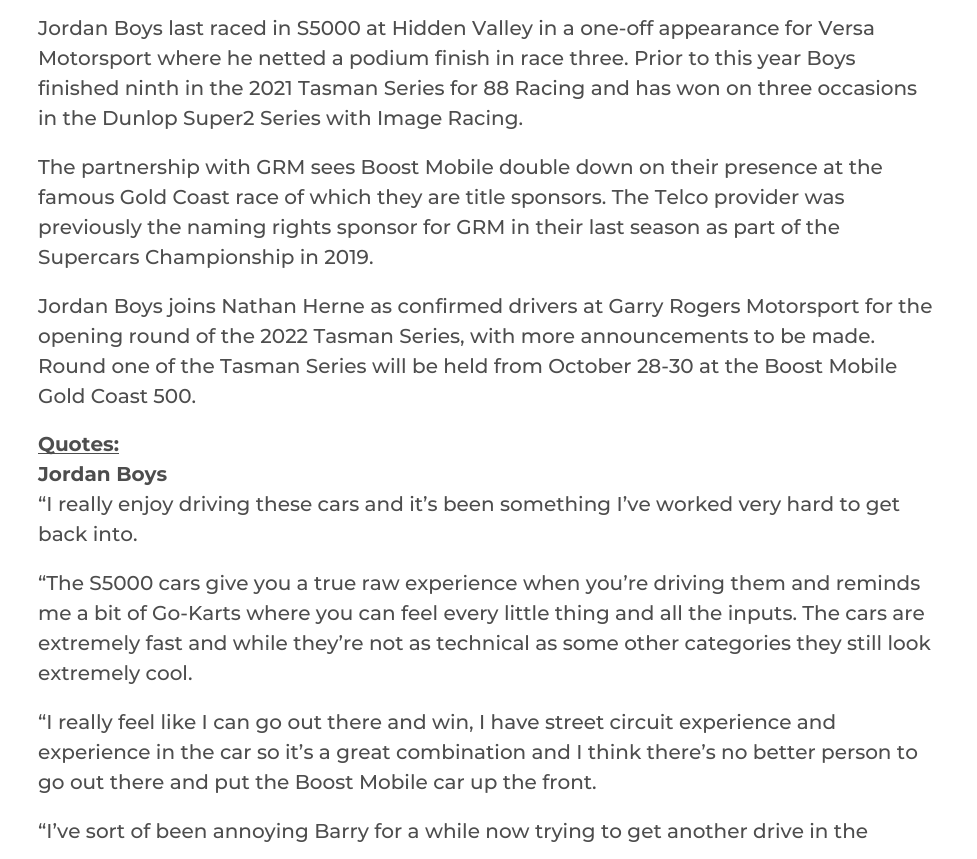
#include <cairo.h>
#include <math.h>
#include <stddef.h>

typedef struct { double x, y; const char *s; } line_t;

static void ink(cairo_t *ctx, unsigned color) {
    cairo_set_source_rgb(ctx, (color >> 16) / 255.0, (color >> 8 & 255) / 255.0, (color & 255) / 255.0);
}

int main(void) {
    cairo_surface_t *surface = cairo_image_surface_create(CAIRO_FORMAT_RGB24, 977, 859);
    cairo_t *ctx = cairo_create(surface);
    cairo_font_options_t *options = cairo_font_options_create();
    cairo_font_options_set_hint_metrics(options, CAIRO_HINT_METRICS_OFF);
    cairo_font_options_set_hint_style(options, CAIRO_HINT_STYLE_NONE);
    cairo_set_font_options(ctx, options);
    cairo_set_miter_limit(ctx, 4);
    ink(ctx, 0xFFFFFF);
    cairo_paint(ctx);
    cairo_select_font_face(ctx, "Montserrat Medium", CAIRO_FONT_SLANT_NORMAL, CAIRO_FONT_WEIGHT_NORMAL);
    cairo_set_font_size(ctx, 20);
    ink(ctx, 0x4D4D4D);
    {
        static const line_t items[] = {
            {38, 35, "Jordan Boys last raced in S5000 at Hidden Valley in a one-off appearance for Versa"},
            {38, 65, "Motorsport where he netted a podium finish in race three. Prior to this year Boys"},
            {38, 95, "finished ninth in the 2021 Tasman Series for 88 Racing and has won on three occasions"},
            {38, 125, "in the Dunlop Super2 Series with Image Racing."},
            {38, 174, "The partnership with GRM sees Boost Mobile double down on their presence at the"},
            {38, 204, "famous Gold Coast race of which they are title sponsors. The Telco provider was"},
            {38, 234, "previously the naming rights sponsor for GRM in their last season as part of the"},
            {38, 264, "Supercars Championship in 2019."},
            {38, 313, "Jordan Boys joins Nathan Herne as confirmed drivers at Garry Rogers Motorsport for the"},
            {38, 343, "opening round of the 2022 Tasman Series, with more announcements to be made."},
            {38, 373, "Round one of the Tasman Series will be held from October 28-30 at the Boost Mobile"},
            {38, 403, "Gold Coast 500."},
        };
        for (size_t i = 0; i < sizeof items / sizeof *items; i++) {
            cairo_move_to(ctx, items[i].x, items[i].y);
            cairo_show_text(ctx, items[i].s);
        }
    }
    cairo_rectangle(ctx, 38, 453, 81, 1);
    cairo_fill(ctx);
    cairo_select_font_face(ctx, "Montserrat", CAIRO_FONT_SLANT_NORMAL, CAIRO_FONT_WEIGHT_BOLD);
    cairo_move_to(ctx, 38, 451);
    cairo_show_text(ctx, "Quotes:");
    cairo_move_to(ctx, 38, 481);
    cairo_show_text(ctx, "Jordan Boys");
    cairo_select_font_face(ctx, "Montserrat Medium", CAIRO_FONT_SLANT_NORMAL, CAIRO_FONT_WEIGHT_NORMAL);
    {
        static const line_t items[] = {
            {38, 511, "“I really enjoy driving these cars and it’s been something I’ve worked very hard to get"},
            {38, 541, "back into."},
            {38, 590, "“The S5000 cars give you a true raw experience when you’re driving them and reminds"},
            {38, 620, "me a bit of Go-Karts where you can feel every little thing and all the inputs. The cars are"},
            {38, 650, "extremely fast and while they’re not as technical as some other categories they still look"},
            {38, 680, "extremely cool."},
            {38, 729, "“I really feel like I can go out there and win, I have street circuit experience and"},
            {38, 759, "experience in the car so it’s a great combination and I think there’s no better person to"},
            {38, 789, "go out there and put the Boost Mobile car up the front."},
            {38, 838, "“I’ve sort of been annoying Barry for a while now trying to get another drive in the"},
        };
        for (size_t i = 0; i < sizeof items / sizeof *items; i++) {
            cairo_move_to(ctx, items[i].x, items[i].y);
            cairo_show_text(ctx, items[i].s);
        }
    }
    cairo_surface_write_to_png(surface, "image.png");
    cairo_font_options_destroy(options);
    cairo_destroy(ctx);
    cairo_surface_destroy(surface);
    return 0;
}
